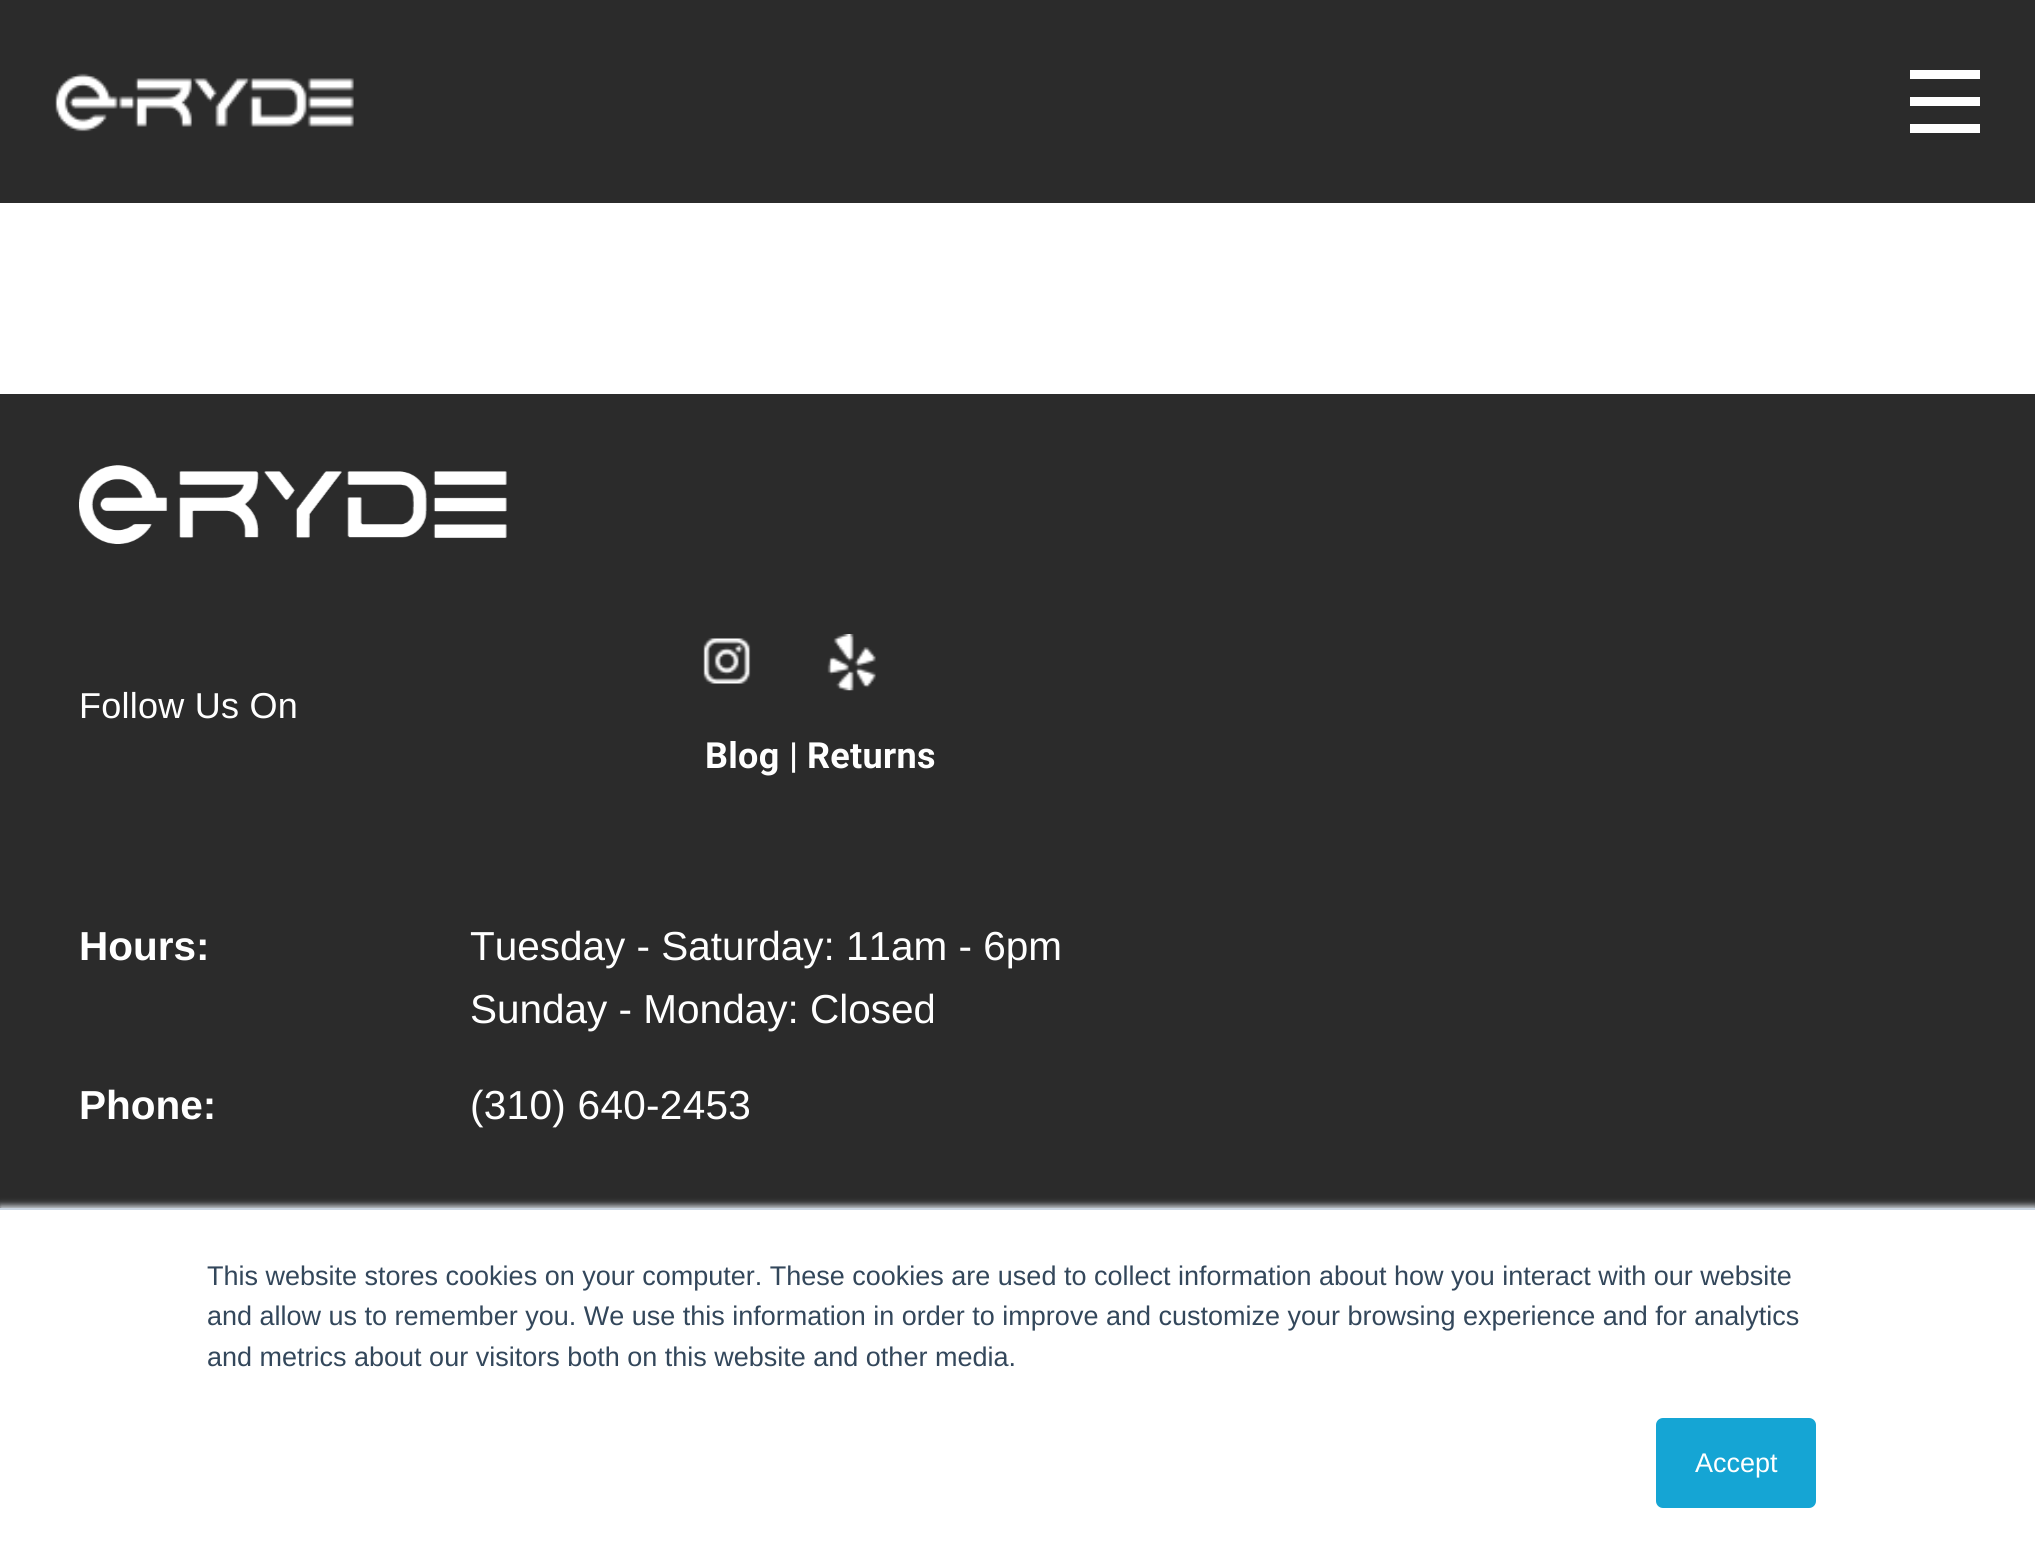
#include <cairo.h>
#include <math.h>
#include <stddef.h>

typedef struct { double x, y; const char *s; } line_t;
typedef struct { double x, y, w, h; unsigned color; } box_t;

static void ink(cairo_t *ctx, unsigned color) {
    cairo_set_source_rgb(ctx, (color >> 16) / 255.0, (color >> 8 & 255) / 255.0, (color & 255) / 255.0);
}

static void write_spaced(cairo_t *ctx, double x, double y, const char *s, double letter, double word) {
    cairo_move_to(ctx, x, y);
    while (*s) {
        char ch[5] = {0};
        int n = 0;
        do ch[n++] = *s++; while ((*s & 0xC0) == 0x80);
        cairo_show_text(ctx, ch);
        cairo_rel_move_to(ctx, letter + word * (*ch == ' '), 0);
    }
}

static void round_path(cairo_t *ctx, double x, double y, double w, double h, double r) {
    cairo_new_sub_path(ctx);
    cairo_arc(ctx, x + w - r, y + h - r, r, 0, M_PI / 2);
    cairo_arc(ctx, x + r, y + h - r, r, M_PI / 2, M_PI);
    cairo_arc(ctx, x + r, y + r, r, M_PI, 1.5 * M_PI);
    cairo_arc(ctx, x + w - r, y + r, r, 1.5 * M_PI, 2 * M_PI);
    cairo_close_path(ctx);
}

static void blur_box(cairo_t *ctx, double x, double y, double w, double h, double r, double blur, double alpha) {
    cairo_push_group_with_content(ctx, CAIRO_CONTENT_ALPHA);
    cairo_set_operator(ctx, CAIRO_OPERATOR_SOURCE);
    for (int i = 15; i >= -15 && fmin(w, h) + blur * i / 3 > 0; i -= 2) {
        double e = blur * i / 6;
        cairo_set_source_rgba(ctx, 0, 0, 0, alpha * erfc((i - 1) / 8.5) / 2);
        round_path(ctx, x - e, y - e, w + 2 * e, h + 2 * e, fmax(0, fmin(r + e + blur * .6, fmin(w, h) / 2 + e)));
        cairo_fill(ctx);
    }
    cairo_pattern_t *soft = cairo_pop_group(ctx);
    cairo_mask(ctx, soft);
    cairo_pattern_destroy(soft);
}

static void paste(cairo_t *ctx, const char *path, double x, double y, double w, double h) {
    cairo_surface_t *image = cairo_image_surface_create_from_png(path);
    cairo_save(ctx);
    cairo_set_source_surface(ctx, image, x, y);
    cairo_rectangle(ctx, x, y, w, h);
    cairo_fill(ctx);
    cairo_restore(ctx);
    cairo_surface_destroy(image);
}

int main(void) {
    cairo_surface_t *surface = cairo_image_surface_create(CAIRO_FORMAT_RGB24, 2035, 1566);
    cairo_t *ctx = cairo_create(surface);
    cairo_font_options_t *options = cairo_font_options_create();
    cairo_font_options_set_hint_metrics(options, CAIRO_HINT_METRICS_OFF);
    cairo_font_options_set_hint_style(options, CAIRO_HINT_STYLE_NONE);
    cairo_set_font_options(ctx, options);
    cairo_set_miter_limit(ctx, 4);
    ink(ctx, 0xFFFFFF);
    cairo_paint(ctx);
    ink(ctx, 0x2B2B2B);
    cairo_rectangle(ctx, 0, 0, 2035, 203);
    cairo_fill(ctx);
    paste(ctx, "media/1.png", 55, 73, 299, 59);
    {
        static const box_t items[] = {
            {1910, 70, 70, 9, 0xFFFFFF},
            {1910, 97, 70, 9, 0xFFFFFF},
            {1910, 124, 70, 9, 0xFFFFFF},
            {0, 394, 2035, 814, 0x2B2B2B},
        };
        for (size_t i = 0; i < sizeof items / sizeof *items; i++) {
            ink(ctx, items[i].color);
            cairo_rectangle(ctx, items[i].x, items[i].y, items[i].w, items[i].h);
            cairo_fill(ctx);
        }
    }
    paste(ctx, "media/2.png", 79, 465, 428, 79);
    cairo_select_font_face(ctx, "Arimo", CAIRO_FONT_SLANT_NORMAL, CAIRO_FONT_WEIGHT_NORMAL);
    cairo_set_font_size(ctx, 36);
    ink(ctx, 0xFFFFFF);
    write_spaced(ctx, 79, 718, "Follow Us On", 0.25, 0);
    paste(ctx, "media/3.png", 703, 638, 48, 46);
    paste(ctx, "media/4.png", 827, 634, 49, 57);
    cairo_select_font_face(ctx, "Roboto", CAIRO_FONT_SLANT_NORMAL, CAIRO_FONT_WEIGHT_BOLD);
    write_spaced(ctx, 705, 768, "Blog", 0.3, 0);
    cairo_move_to(ctx, 789, 768);
    cairo_show_text(ctx, "|");
    write_spaced(ctx, 807, 768, "Returns", 0.3, 0);
    cairo_select_font_face(ctx, "Arimo", CAIRO_FONT_SLANT_NORMAL, CAIRO_FONT_WEIGHT_BOLD);
    cairo_set_font_size(ctx, 40.5);
    cairo_move_to(ctx, 79, 960);
    cairo_show_text(ctx, "Hours:");
    cairo_select_font_face(ctx, "Arimo", CAIRO_FONT_SLANT_NORMAL, CAIRO_FONT_WEIGHT_NORMAL);
    cairo_move_to(ctx, 470, 960);
    cairo_show_text(ctx, "Tuesday - Saturday: 11am - 6pm");
    cairo_move_to(ctx, 470, 1023);
    cairo_show_text(ctx, "Sunday - Monday: Closed");
    cairo_select_font_face(ctx, "Arimo", CAIRO_FONT_SLANT_NORMAL, CAIRO_FONT_WEIGHT_BOLD);
    cairo_move_to(ctx, 79, 1119);
    cairo_show_text(ctx, "Phone:");
    cairo_select_font_face(ctx, "Arimo", CAIRO_FONT_SLANT_NORMAL, CAIRO_FONT_WEIGHT_NORMAL);
    write_spaced(ctx, 470, 1119, "(310) 640-2453", 0.3, 0);
    ink(ctx, 0xEAF0F6);
    blur_box(ctx, 0, 1206, 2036, 358, 0, 3.5, 1);
    ink(ctx, 0xFFFFFF);
    cairo_rectangle(ctx, 0, 1210, 2035, 356);
    cairo_fill(ctx);
    ink(ctx, 0xCBD6E2);
    cairo_rectangle(ctx, 0, 1208, 2035, 2);
    cairo_fill(ctx);
    cairo_select_font_face(ctx, "Liberation Sans", CAIRO_FONT_SLANT_NORMAL, CAIRO_FONT_WEIGHT_NORMAL);
    cairo_set_font_size(ctx, 27);
    ink(ctx, 0x33475B);
    {
        static const line_t items[] = {
            {207, 1285, "This website stores cookies on your computer. These cookies are used to collect information about how you interact with our website"},
            {207, 1325, "and allow us to remember you. We use this information in order to improve and customize your browsing experience and for analytics"},
            {207, 1366, "and metrics about our visitors both on this website and other media."},
        };
        for (size_t i = 0; i < sizeof items / sizeof *items; i++) {
            cairo_move_to(ctx, items[i].x, items[i].y);
            cairo_show_text(ctx, items[i].s);
        }
    }
    ink(ctx, 0x15A5D4);
    round_path(ctx, 1657, 1419, 158, 88, 6);
    cairo_fill_preserve(ctx);
    cairo_stroke(ctx);
    ink(ctx, 0xFFFFFF);
    cairo_move_to(ctx, 1695, 1472);
    cairo_show_text(ctx, "Accept");
    cairo_surface_write_to_png(surface, "image.png");
    cairo_font_options_destroy(options);
    cairo_destroy(ctx);
    cairo_surface_destroy(surface);
    return 0;
}
